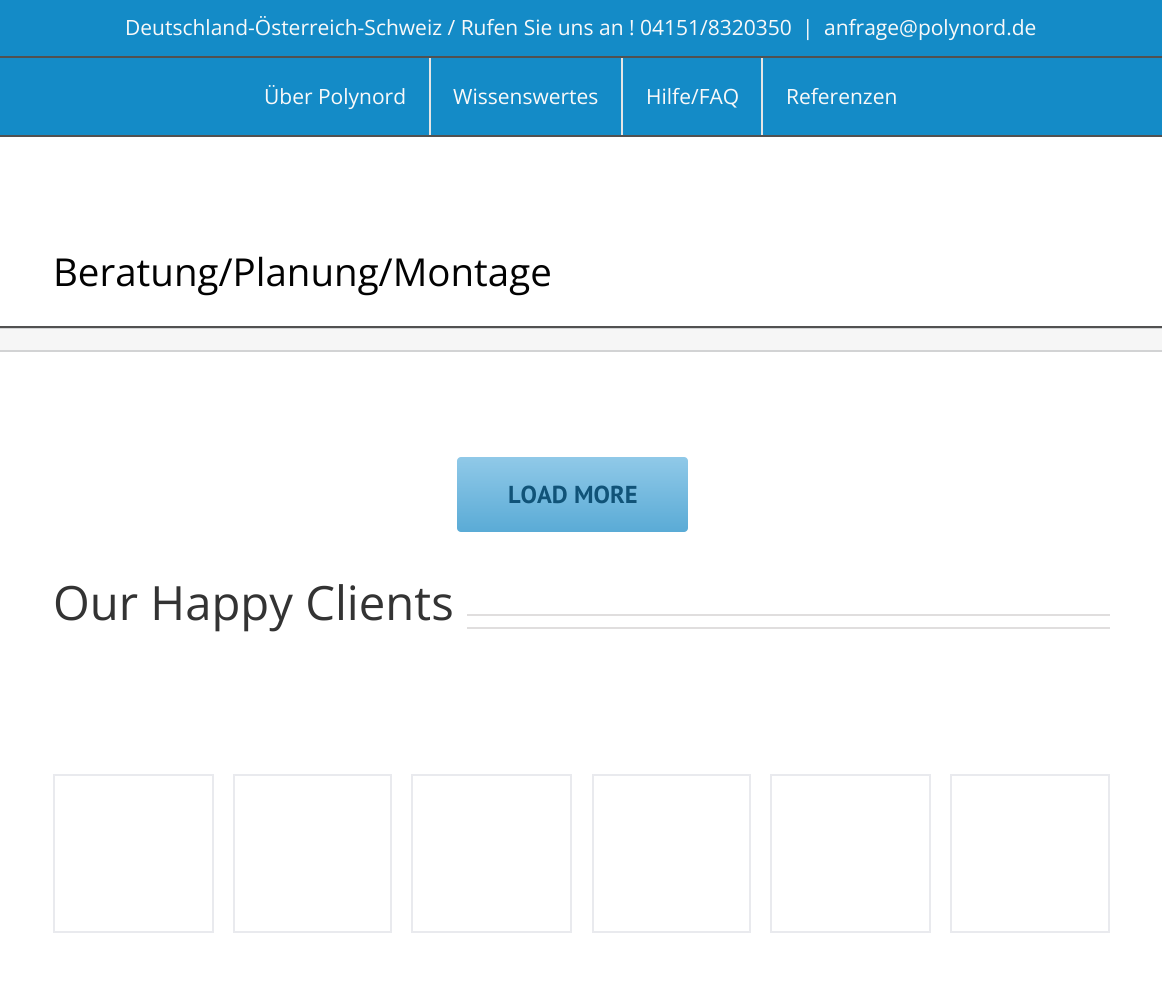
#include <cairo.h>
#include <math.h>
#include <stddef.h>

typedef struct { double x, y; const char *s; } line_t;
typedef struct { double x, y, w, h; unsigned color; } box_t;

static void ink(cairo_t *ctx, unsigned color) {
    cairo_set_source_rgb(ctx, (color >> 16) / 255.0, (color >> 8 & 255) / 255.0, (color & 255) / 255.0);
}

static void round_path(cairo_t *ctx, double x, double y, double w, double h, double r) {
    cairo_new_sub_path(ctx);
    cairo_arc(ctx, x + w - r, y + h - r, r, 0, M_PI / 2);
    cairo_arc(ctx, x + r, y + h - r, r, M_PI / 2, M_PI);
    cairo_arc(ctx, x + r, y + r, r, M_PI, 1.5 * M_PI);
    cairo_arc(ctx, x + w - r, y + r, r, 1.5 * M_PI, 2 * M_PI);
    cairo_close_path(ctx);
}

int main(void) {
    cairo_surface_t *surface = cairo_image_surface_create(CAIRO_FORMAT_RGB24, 1162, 985);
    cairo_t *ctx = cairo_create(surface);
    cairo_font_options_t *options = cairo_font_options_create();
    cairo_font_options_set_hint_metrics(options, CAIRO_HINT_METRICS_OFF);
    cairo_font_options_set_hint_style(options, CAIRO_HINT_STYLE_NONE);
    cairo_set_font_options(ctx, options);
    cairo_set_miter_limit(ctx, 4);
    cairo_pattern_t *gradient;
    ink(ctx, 0xFFFFFF);
    cairo_paint(ctx);
    {
        static const box_t items[] = {
            {0, 0, 1162, 135, 0x148BC7},
            {0, 135, 1162, 2, 0x515151},
            {0, 56, 1162, 2, 0x515151},
        };
        for (size_t i = 0; i < sizeof items / sizeof *items; i++) {
            ink(ctx, items[i].color);
            cairo_rectangle(ctx, items[i].x, items[i].y, items[i].w, items[i].h);
            cairo_fill(ctx);
        }
    }
    cairo_select_font_face(ctx, "Open Sans", CAIRO_FONT_SLANT_NORMAL, CAIRO_FONT_WEIGHT_NORMAL);
    cairo_set_font_size(ctx, 21);
    ink(ctx, 0xF9F9F9);
    {
        static const line_t items[] = {
            {125, 35, "Deutschland-Österreich-Schweiz / Rufen Sie uns an ! 04151/8320350"},
            {802, 35, "|"},
            {824, 35, "anfrage@polynord.de"},
            {264, 104, "Über Polynord"},
        };
        for (size_t i = 0; i < sizeof items / sizeof *items; i++) {
            cairo_move_to(ctx, items[i].x, items[i].y);
            cairo_show_text(ctx, items[i].s);
        }
    }
    ink(ctx, 0xE5E5E5);
    cairo_rectangle(ctx, 429, 58, 2, 77);
    cairo_fill(ctx);
    ink(ctx, 0xF9F9F9);
    cairo_move_to(ctx, 453, 104);
    cairo_show_text(ctx, "Wissenswertes");
    ink(ctx, 0xE5E5E5);
    cairo_rectangle(ctx, 621, 58, 2, 77);
    cairo_fill(ctx);
    ink(ctx, 0xF9F9F9);
    cairo_move_to(ctx, 646, 104);
    cairo_show_text(ctx, "Hilfe/FAQ");
    ink(ctx, 0xE5E5E5);
    cairo_rectangle(ctx, 761, 58, 2, 77);
    cairo_fill(ctx);
    ink(ctx, 0xF9F9F9);
    cairo_move_to(ctx, 786, 104);
    cairo_show_text(ctx, "Referenzen");
    ink(ctx, 0x515151);
    cairo_rectangle(ctx, 0, 326, 1162, 2);
    cairo_fill(ctx);
    cairo_set_font_size(ctx, 38.5);
    ink(ctx, 0x020202);
    cairo_move_to(ctx, 53, 286);
    cairo_show_text(ctx, "Beratung/Planung/Montage");
    {
        static const box_t items[] = {
            {0, 329, 1162, 21, 0xF6F6F6},
            {0, 328, 1162, 1, 0xD2D3D4},
            {0, 350, 1162, 2, 0xD2D3D4},
        };
        for (size_t i = 0; i < sizeof items / sizeof *items; i++) {
            ink(ctx, items[i].color);
            cairo_rectangle(ctx, items[i].x, items[i].y, items[i].w, items[i].h);
            cairo_fill(ctx);
        }
    }
    gradient = cairo_pattern_create_linear(572, 457, 572, 532);
    cairo_pattern_add_color_stop_rgba(gradient, 0, 0.565, 0.788, 0.91, 1);
    cairo_pattern_add_color_stop_rgba(gradient, 1, 0.353, 0.671, 0.839, 1);
    cairo_set_source(ctx, gradient);
    cairo_pattern_destroy(gradient);
    round_path(ctx, 457, 457, 231, 75, 4);
    cairo_fill(ctx);
    cairo_select_font_face(ctx, "PT Sans", CAIRO_FONT_SLANT_NORMAL, CAIRO_FONT_WEIGHT_BOLD);
    cairo_set_font_size(ctx, 24.5);
    ink(ctx, 0x105378);
    cairo_move_to(ctx, 508, 503);
    cairo_show_text(ctx, "LOAD MORE");
    cairo_select_font_face(ctx, "Open Sans", CAIRO_FONT_SLANT_NORMAL, CAIRO_FONT_WEIGHT_NORMAL);
    cairo_set_font_size(ctx, 47.25);
    ink(ctx, 0x333333);
    cairo_move_to(ctx, 53, 620);
    cairo_show_text(ctx, "Our Happy Clients");
    ink(ctx, 0xE0DEDE);
    cairo_rectangle(ctx, 467, 614, 643, 2);
    cairo_fill(ctx);
    cairo_rectangle(ctx, 467, 627, 643, 2);
    cairo_fill(ctx);
    cairo_rectangle(ctx, 54, 775, 159, 157);
    ink(ctx, 0xE9EAEE);
    cairo_stroke(ctx);
    cairo_rectangle(ctx, 234, 775, 157, 157);
    cairo_stroke(ctx);
    cairo_rectangle(ctx, 412, 775, 159, 157);
    cairo_stroke(ctx);
    cairo_rectangle(ctx, 593, 775, 157, 157);
    cairo_stroke(ctx);
    cairo_rectangle(ctx, 771, 775, 159, 157);
    cairo_stroke(ctx);
    cairo_rectangle(ctx, 951, 775, 158, 157);
    cairo_stroke(ctx);
    cairo_surface_write_to_png(surface, "image.png");
    cairo_font_options_destroy(options);
    cairo_destroy(ctx);
    cairo_surface_destroy(surface);
    return 0;
}
